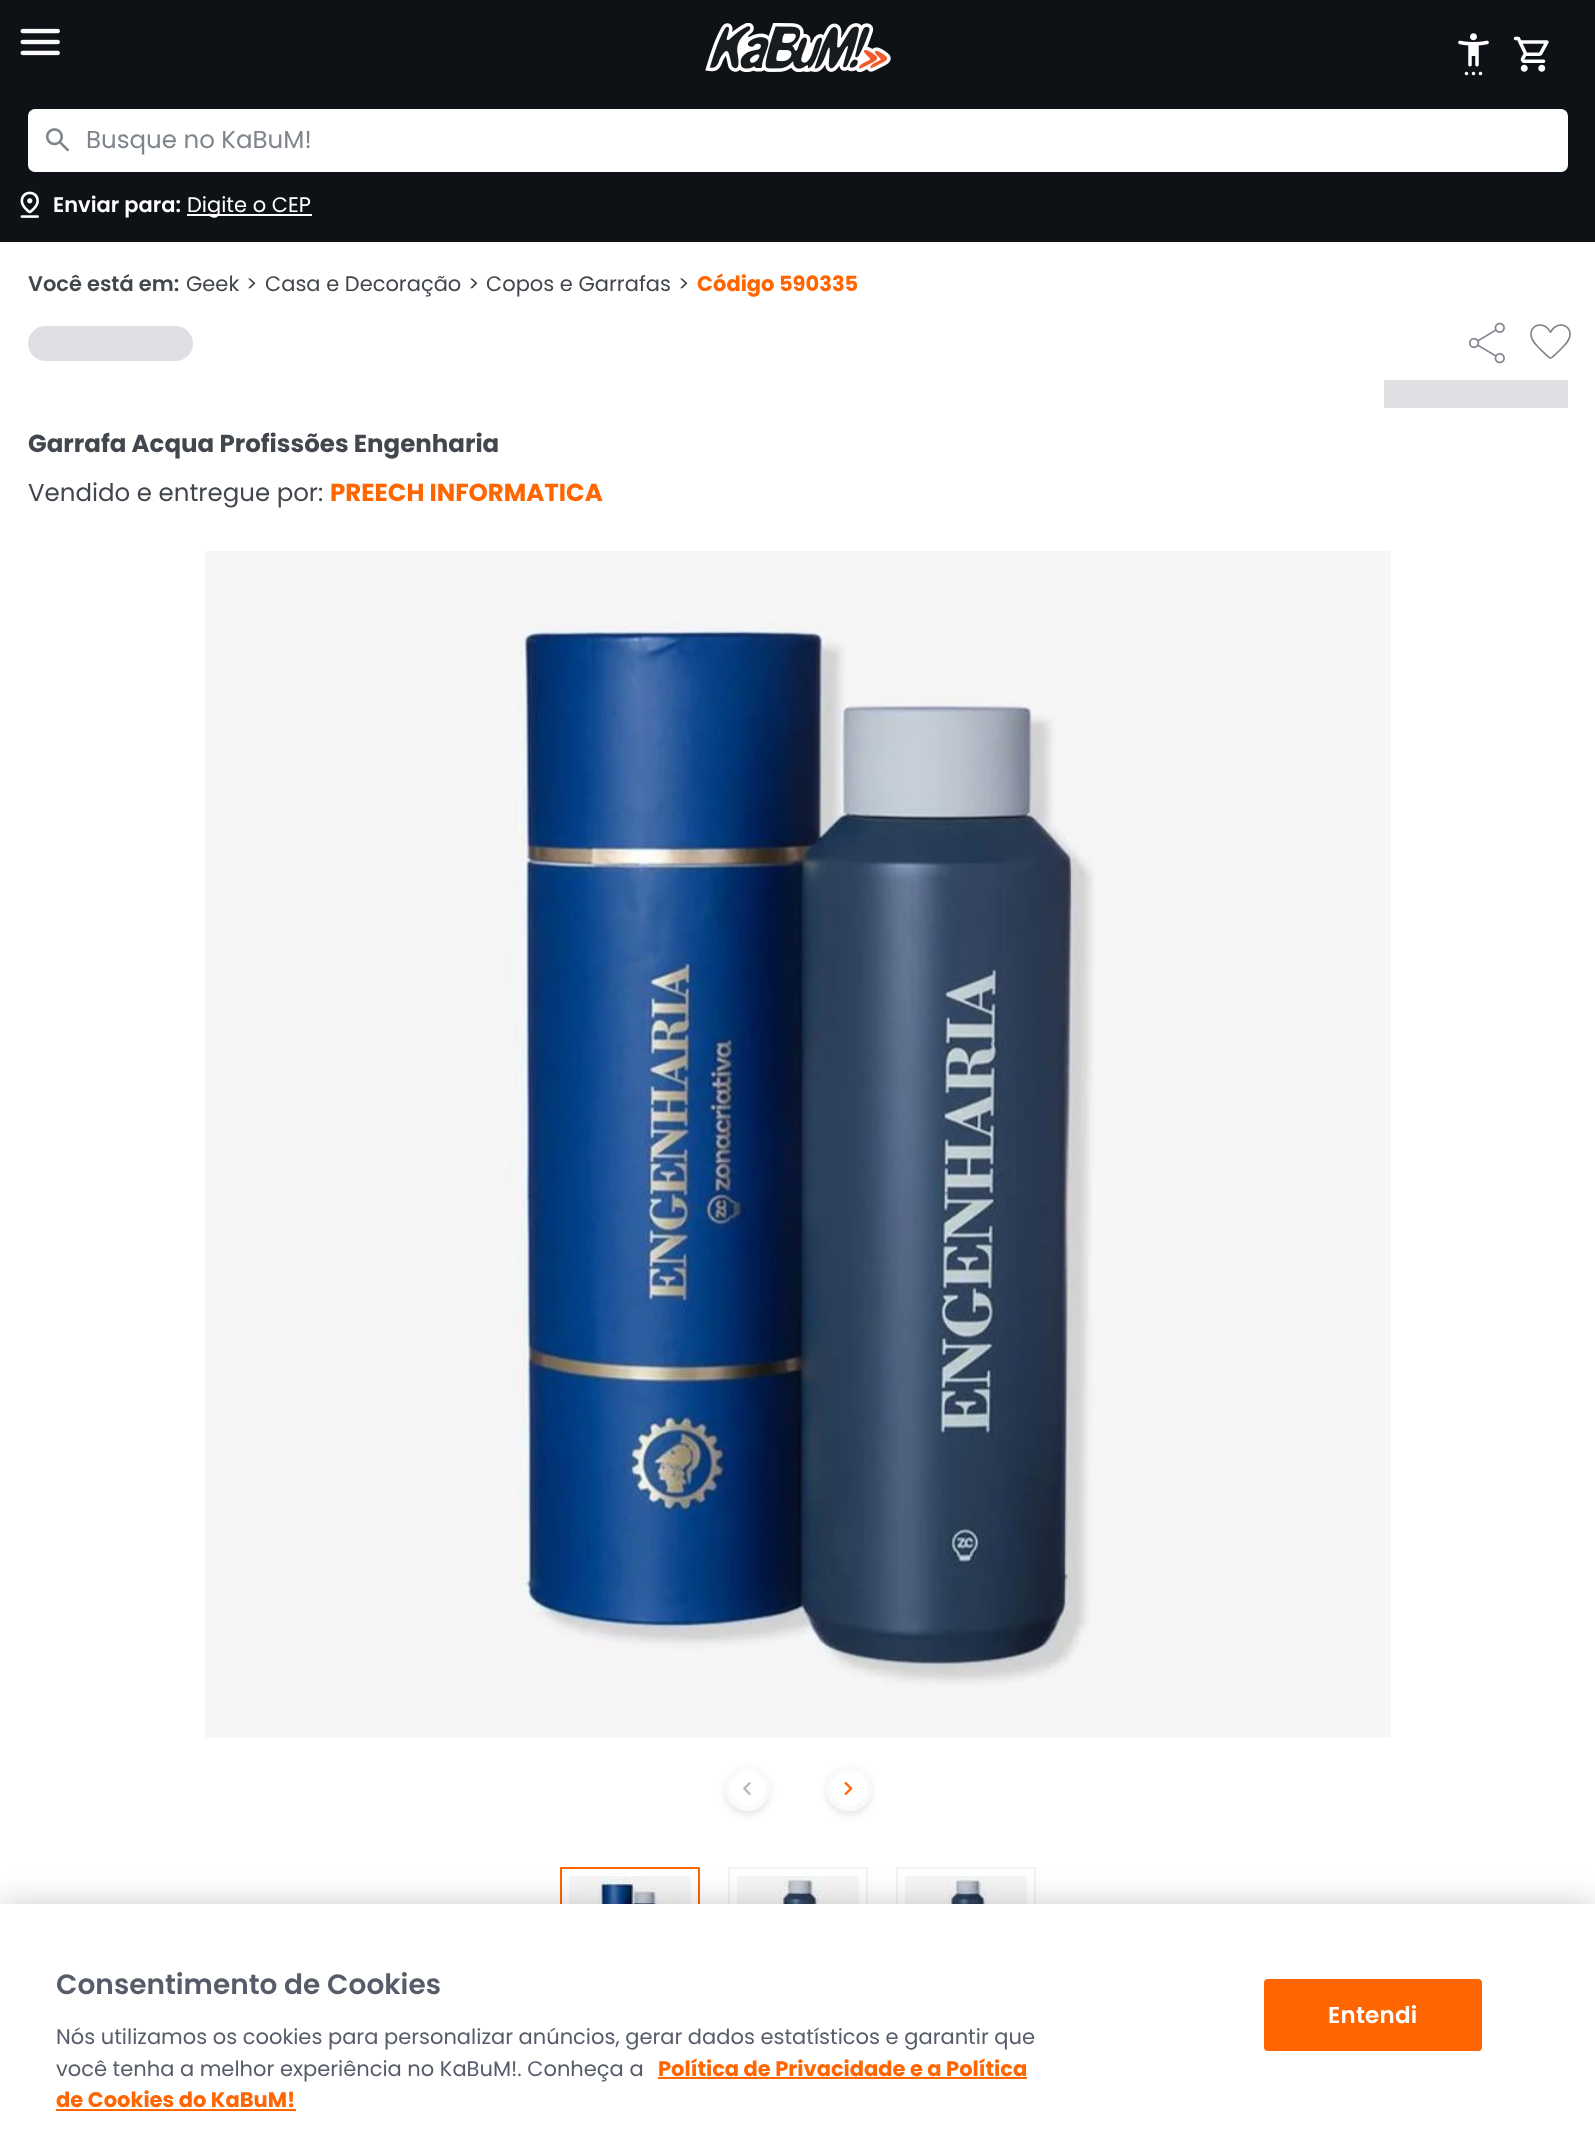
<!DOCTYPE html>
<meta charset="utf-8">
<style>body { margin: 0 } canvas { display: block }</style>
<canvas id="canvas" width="1595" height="2153"></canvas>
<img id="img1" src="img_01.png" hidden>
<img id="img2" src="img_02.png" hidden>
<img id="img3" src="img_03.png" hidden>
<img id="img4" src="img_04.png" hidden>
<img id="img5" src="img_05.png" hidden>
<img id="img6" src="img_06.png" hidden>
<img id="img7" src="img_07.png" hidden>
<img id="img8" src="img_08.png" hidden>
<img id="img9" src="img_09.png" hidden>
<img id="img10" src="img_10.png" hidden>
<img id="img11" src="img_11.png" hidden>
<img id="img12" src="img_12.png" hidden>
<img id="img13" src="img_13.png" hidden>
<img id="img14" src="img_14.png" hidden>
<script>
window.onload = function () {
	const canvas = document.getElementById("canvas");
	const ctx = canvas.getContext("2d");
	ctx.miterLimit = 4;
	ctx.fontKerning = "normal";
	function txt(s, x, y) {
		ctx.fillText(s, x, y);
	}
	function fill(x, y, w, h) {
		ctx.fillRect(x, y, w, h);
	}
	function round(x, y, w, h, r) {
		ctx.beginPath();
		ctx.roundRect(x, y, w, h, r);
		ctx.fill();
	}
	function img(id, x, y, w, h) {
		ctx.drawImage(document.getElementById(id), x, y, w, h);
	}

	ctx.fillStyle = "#FFFFFF";
	fill(0, 0, 1595, 2153);
	ctx.fillStyle = "#0E1116";
	fill(0, 0, 1595, 242);
	img("img1", 20, 28, 40, 28);
	img("img2", 705, 23, 186, 49);
	img("img3", 1458, 33, 31, 43);
	img("img4", 1513, 36, 36, 36);
	ctx.fillStyle = "#FFFFFF";
	ctx.beginPath();
	ctx.roundRect(29, 110, 1538, 61, 6);
	ctx.fill();
	ctx.strokeStyle = "#FFFFFF";
	ctx.lineWidth = 2;
	ctx.stroke();
	img("img5", 45, 128, 24, 24);
	img("img6", 20, 191, 19, 27);
	fill(187, 214, 125, 2);
	ctx.fillStyle = "#DEE0E4";
	round(28, 326, 165, 35, 17.5);
	img("img7", 1469, 322, 36, 42);
	img("img8", 1530, 324, 41, 35);
	fill(1384, 380, 184, 28);
	img("img9", 205, 551, 1186, 1187);
	ctx.fillStyle = "rgba(96, 97, 112, 0.16)";
	ctx.filter = "blur(3.5px)";
	ctx.beginPath();
	ctx.roundRect(725, 1769, 45, 46, 22.5);
	ctx.fill();
	ctx.filter = "none";
	ctx.fillStyle = "#FFFFFF";
	ctx.beginPath();
	ctx.arc(747.5, 1788.5, 20, 0, Math.PI * 2);
	ctx.fill();
	ctx.strokeStyle = "#FAFAFB";
	ctx.lineWidth = 5;
	ctx.stroke();
	img("img10", 743, 1782, 8, 13);
	ctx.fillStyle = "rgba(96, 97, 112, 0.16)";
	ctx.filter = "blur(3.5px)";
	ctx.beginPath();
	ctx.roundRect(826, 1769, 46, 46, 23);
	ctx.fill();
	ctx.filter = "none";
	ctx.fillStyle = "#FFFFFF";
	ctx.beginPath();
	ctx.roundRect(828.5, 1768.5, 41, 40, 20);
	ctx.fill();
	ctx.stroke();
	img("img11", 844, 1782, 9, 13);
	ctx.strokeStyle = "#FF6500";
	ctx.lineWidth = 2;
	ctx.strokeRect(561, 1868, 138, 138);
	img("img12", 569, 1876, 122, 28);
	ctx.strokeStyle = "#F2F3F4";
	ctx.strokeRect(729, 1868, 138, 138);
	img("img13", 737, 1876, 122, 28);
	ctx.strokeRect(897, 1868, 138, 138);
	img("img14", 905, 1876, 122, 28);
	ctx.fillStyle = "rgba(0, 0, 0, 0.2)";
	ctx.filter = "blur(16px)";
	ctx.beginPath();
	ctx.rect(0, 1904, 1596, 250);
	ctx.fill();
	ctx.filter = "none";
	ctx.fillStyle = "#FFFFFF";
	fill(0, 1904, 1595, 249);
	ctx.fillStyle = "#FF6500";
	fill(658, 2077, 369, 2);
	fill(56, 2109, 240, 2);
	ctx.beginPath();
	ctx.roundRect(1265, 1980, 216, 70, 3);
	ctx.fill();
	ctx.strokeStyle = "#FF6500";
	ctx.stroke();
	ctx.font = "24.5px Poppins";
	ctx.fillStyle = "#7F858D";
	txt("Busque no KaBuM!", 86, 148);
	ctx.font = "600 21px Poppins";
	ctx.fillStyle = "#FFFFFF";
	txt("Enviar para:", 53, 212);
	ctx.font = "21px Poppins";
	txt("Digite o CEP", 187, 212);
	ctx.font = "600 21px Poppins";
	ctx.fillStyle = "#42464D";
	txt("Você está em:", 28, 291);
	ctx.font = "21px Poppins";
	txt("Geek", 186, 291);
	txt(">", 246, 291);
	txt("Casa e Decoração", 265, 291);
	txt(">", 468, 291);
	txt("Copos e Garrafas", 486, 291);
	txt(">", 678, 291);
	ctx.font = "bold 21px Poppins";
	ctx.fillStyle = "#FF6500";
	txt("Código 590335", 697, 291);
	ctx.font = "bold 24.5px Poppins";
	ctx.fillStyle = "#42464D";
	txt("Garrafa Acqua Profissões Engenharia", 28, 452);
	ctx.font = "24.5px Poppins";
	txt("Vendido e entregue por:", 28, 501);
	ctx.font = "bold 24.5px Poppins";
	ctx.fillStyle = "#FF6500";
	txt("PREECH INFORMATICA", 330, 501);
	ctx.font = "600 28px 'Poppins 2'";
	ctx.fillStyle = "#565C69";
	txt("Consentimento de Cookies", 56, 1994);
	ctx.font = "21px 'Poppins 2'";
	txt("Nós utilizamos os cookies para personalizar anúncios, gerar dados estatísticos e garantir que", 56, 2044);
	txt("você tenha a melhor experiência no KaBuM!. Conheça a", 56, 2076);
	ctx.font = "bold 21px 'Poppins 2'";
	ctx.fillStyle = "#FF6500";
	txt("Política de Privacidade e a Política", 658, 2076);
	txt("de Cookies do KaBuM!", 56, 2107);
	ctx.letterSpacing = "0.25px";
	ctx.font = "600 23px 'Poppins 2'";
	ctx.fillStyle = "#FFFFFF";
	txt("Entendi", 1328, 2023);
};
</script>
